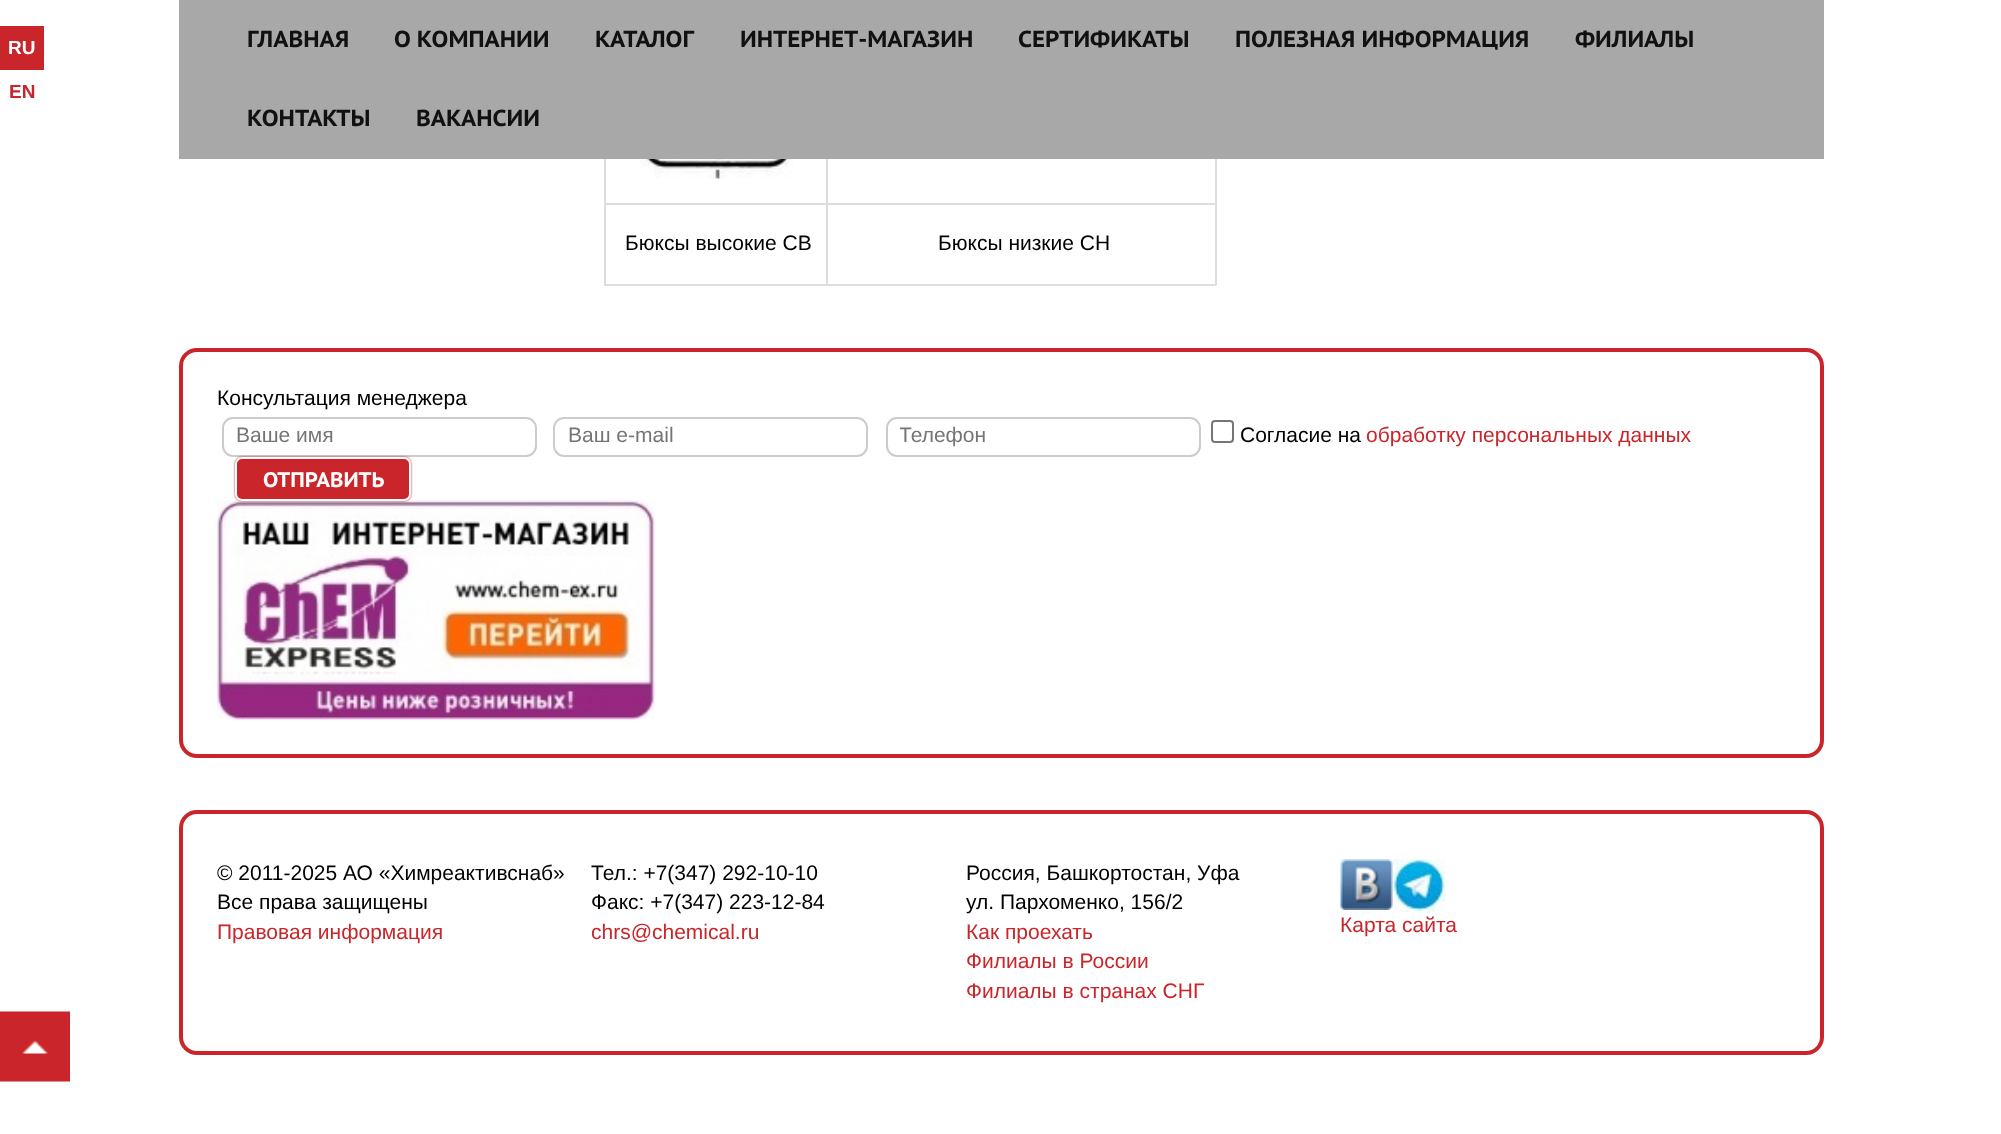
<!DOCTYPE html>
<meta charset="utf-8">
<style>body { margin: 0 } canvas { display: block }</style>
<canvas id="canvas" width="2001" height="1134"></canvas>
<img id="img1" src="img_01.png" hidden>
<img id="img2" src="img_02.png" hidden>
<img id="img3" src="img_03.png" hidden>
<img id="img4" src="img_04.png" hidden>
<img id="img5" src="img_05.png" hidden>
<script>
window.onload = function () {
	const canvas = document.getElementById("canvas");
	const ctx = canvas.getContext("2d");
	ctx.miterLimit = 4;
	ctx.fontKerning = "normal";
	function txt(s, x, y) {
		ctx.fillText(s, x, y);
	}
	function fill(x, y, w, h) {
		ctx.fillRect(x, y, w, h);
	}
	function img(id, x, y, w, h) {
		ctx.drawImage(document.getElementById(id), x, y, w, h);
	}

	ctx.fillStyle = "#FFFFFF";
	fill(0, 0, 2001, 1134);
	ctx.fillStyle = "#C9252B";
	fill(0, 26, 44, 44);
	ctx.fillStyle = "#A8A8A8";
	fill(179, 0, 1645, 159);
	ctx.fillStyle = "#DDDDDD";
	fill(1215, 159, 2, 126);
	fill(604, 284, 612, 2);
	fill(604, 159, 2, 126);
	img("img1", 636, 159, 159, 20);
	fill(826, 203, 390, 2);
	fill(826, 203, 2, 82);
	fill(604, 203, 224, 2);
	fill(826, 159, 2, 46);
	ctx.beginPath();
	ctx.roundRect(181, 350, 1641, 406, 16);
	ctx.strokeStyle = "#C9252B";
	ctx.lineWidth = 4;
	ctx.stroke();
	ctx.beginPath();
	ctx.roundRect(223, 418, 313, 38, 10);
	ctx.strokeStyle = "#CCCCCC";
	ctx.lineWidth = 2;
	ctx.stroke();
	ctx.beginPath();
	ctx.roundRect(554, 418, 313, 38, 10);
	ctx.stroke();
	ctx.beginPath();
	ctx.roundRect(887, 418, 313, 38, 10);
	ctx.stroke();
	ctx.beginPath();
	ctx.roundRect(1212, 421, 21, 21, 3);
	ctx.strokeStyle = "#767676";
	ctx.stroke();
	img("img2", 217, 500, 438, 220);
	ctx.fillStyle = "#C9252B";
	ctx.filter = "blur(1px)";
	ctx.beginPath();
	ctx.roundRect(235, 457, 176, 44, 7);
	ctx.fill();
	ctx.filter = "none";
	ctx.beginPath();
	ctx.roundRect(236, 458, 174, 42, 6);
	ctx.fill();
	ctx.strokeStyle = "#FFFFFF";
	ctx.stroke();
	ctx.beginPath();
	ctx.roundRect(181, 812, 1641, 241, 16);
	ctx.strokeStyle = "#C9252B";
	ctx.lineWidth = 4;
	ctx.stroke();
	img("img3", 1340, 859, 53, 51);
	img("img4", 1393, 859, 53, 53);
	img("img5", 0, 1011, 70, 71);
	ctx.font = "bold 19px Liberation Sans";
	ctx.fillStyle = "#FFFFFF";
	txt("RU", 8, 54);
	ctx.fillStyle = "#C9252B";
	txt("EN", 9, 98);
	ctx.font = "bold 23.1px PT Sans Caption";
	ctx.fillStyle = "#111111";
	txt("ГЛАВНАЯ", 247, 47);
	txt("О КОМПАНИИ", 394, 47);
	txt("КАТАЛОГ", 595, 47);
	txt("ИНТЕРНЕТ-МАГАЗИН", 740, 47);
	txt("СЕРТИФИКАТЫ", 1018, 47);
	txt("ПОЛЕЗНАЯ ИНФОРМАЦИЯ", 1235, 47);
	txt("ФИЛИАЛЫ", 1575, 47);
	txt("КОНТАКТЫ", 247, 126);
	txt("ВАКАНСИИ", 416, 126);
	ctx.font = "21px Liberation Sans";
	ctx.fillStyle = "#000000";
	txt("Бюксы высокие СВ", 625, 250);
	txt("Бюксы низкие СН", 938, 250);
	txt("Консультация менеджера", 217, 405);
	ctx.fillStyle = "#757575";
	txt("Ваше имя", 236, 442);
	txt("Ваш e-mail", 568, 442);
	ctx.save();
	ctx.beginPath();
	ctx.rect(900, 424, 287, 24);
	ctx.clip();
	txt("Телефон", 899, 442);
	ctx.restore();
	ctx.fillStyle = "#000000";
	txt("Согласие на", 1240, 442);
	ctx.fillStyle = "#C9252B";
	txt("обработку персональных данных", 1366, 442);
	ctx.font = "bold 21px PT Sans Caption";
	ctx.fillStyle = "#FFFFFF";
	txt("ОТПРАВИТЬ", 263, 487);
	ctx.font = "21px Liberation Sans";
	ctx.fillStyle = "#000000";
	txt("© 2011-2025 АО «Химреактивснаб»", 217, 880);
	txt("Все права защищены", 217, 909);
	ctx.fillStyle = "#C9252B";
	txt("Правовая информация", 217, 939);
	ctx.fillStyle = "#000000";
	txt("Тел.: +7(347) 292-10-10", 591, 880);
	txt("Факс: +7(347) 223-12-84", 591, 909);
	ctx.fillStyle = "#C9252B";
	txt("chrs@chemical.ru", 591, 939);
	ctx.fillStyle = "#000000";
	txt("Россия, Башкортостан, Уфа", 966, 880);
	txt("ул. Пархоменко, 156/2", 966, 909);
	ctx.fillStyle = "#C9252B";
	txt("Как проехать", 966, 939);
	txt("Филиалы в России", 966, 968);
	txt("Филиалы в странах СНГ", 966, 998);
	txt("Карта сайта", 1340, 932);
};
</script>
